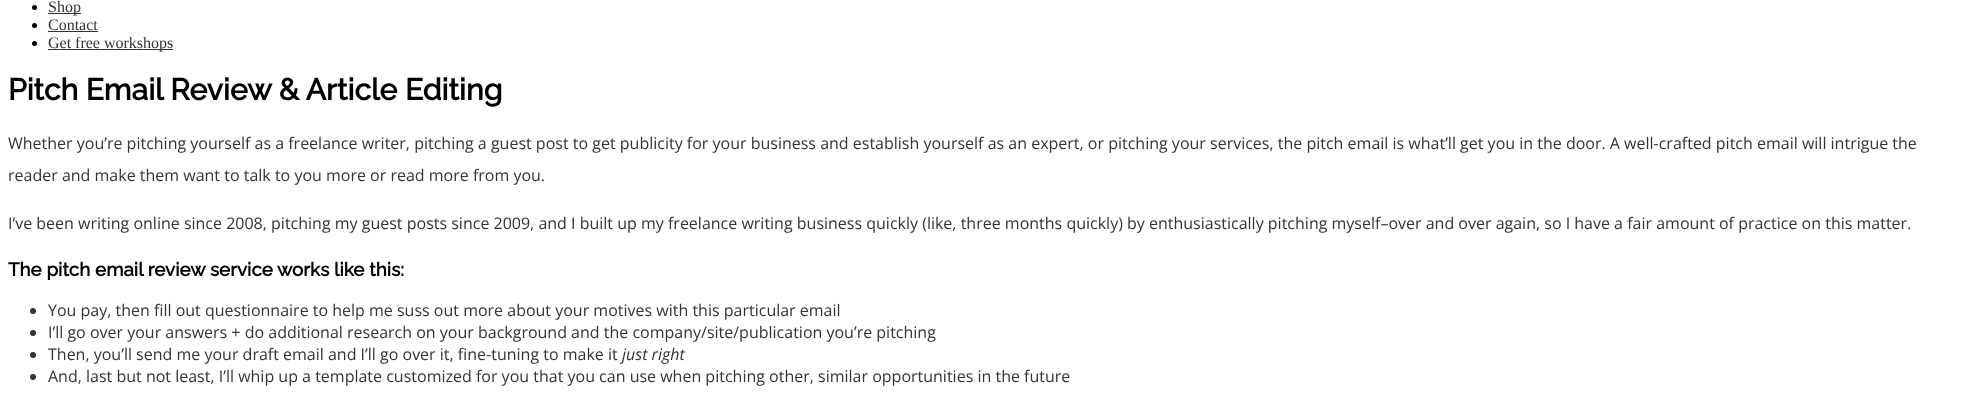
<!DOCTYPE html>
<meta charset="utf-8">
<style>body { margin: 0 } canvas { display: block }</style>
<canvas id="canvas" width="1966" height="406"></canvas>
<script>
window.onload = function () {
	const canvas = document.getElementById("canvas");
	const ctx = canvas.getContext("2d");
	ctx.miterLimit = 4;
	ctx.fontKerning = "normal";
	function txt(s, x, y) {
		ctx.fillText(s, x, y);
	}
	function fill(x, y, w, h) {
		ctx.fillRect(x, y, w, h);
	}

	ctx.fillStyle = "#FFFFFF";
	fill(0, 0, 1966, 406);
	ctx.fillStyle = "#000000";
	ctx.beginPath();
	ctx.arc(34.5, 7.5, 2.5, 0, Math.PI * 2);
	ctx.fill();
	ctx.fillStyle = "#333333";
	fill(48, 13, 33, 1);
	ctx.fillStyle = "#000000";
	ctx.beginPath();
	ctx.arc(34.5, 25.5, 2.5, 0, Math.PI * 2);
	ctx.fill();
	ctx.fillStyle = "#333333";
	fill(48, 31, 50, 1);
	ctx.fillStyle = "#000000";
	ctx.beginPath();
	ctx.arc(34.5, 43.5, 2.5, 0, Math.PI * 2);
	ctx.fill();
	ctx.fillStyle = "#333333";
	fill(48, 49, 125, 1);
	ctx.beginPath();
	ctx.arc(33, 311, 3, 0, Math.PI * 2);
	ctx.fill();
	ctx.beginPath();
	ctx.arc(33, 333, 3, 0, Math.PI * 2);
	ctx.fill();
	ctx.beginPath();
	ctx.arc(33, 355, 3, 0, Math.PI * 2);
	ctx.fill();
	ctx.beginPath();
	ctx.arc(33, 377, 3, 0, Math.PI * 2);
	ctx.fill();
	ctx.font = "16px Liberation Serif";
	txt("Shop", 48, 12);
	txt("Contact", 48, 30);
	txt("Get free workshops", 48, 48);
	ctx.font = "bold 30px Raleway";
	ctx.fillStyle = "#000000";
	txt("Pitch Email Review & Article Editing", 8, 100);
	ctx.font = "16px Open Sans";
	ctx.fillStyle = "#333333";
	txt("Whether you’re pitching yourself as a freelance writer, pitching a guest post to get publicity for your business and establish yourself as an expert, or pitching your services, the pitch email is what’ll get you in the door. A well-crafted pitch email will intrigue the", 8, 149);
	txt("reader and make them want to talk to you more or read more from you.", 8, 181);
	txt("I’ve been writing online since 2008, pitching my guest posts since 2009, and I built up my freelance writing business quickly (like, three months quickly) by enthusiastically pitching myself–over and over again, so I have a fair amount of practice on this matter.", 8, 229);
	ctx.font = "bold 18.75px Raleway";
	ctx.fillStyle = "#000000";
	txt("The pitch email review service works like this:", 8, 276);
	ctx.font = "16px Open Sans";
	ctx.fillStyle = "#333333";
	txt("You pay, then fill out questionnaire to help me suss out more about your motives with this particular email", 48, 316);
	txt("I’ll go over your answers + do additional research on your background and the company/site/publication you’re pitching", 48, 338);
	txt("Then, you’ll send me your draft email and I’ll go over it, fine-tuning to make it", 48, 360);
	ctx.font = "italic 16px Open Sans";
	txt("just right", 622, 360);
	ctx.font = "16px Open Sans";
	txt("And, last but not least, I’ll whip up a template customized for you that you can use when pitching other, similar opportunities in the future", 48, 382);
};
</script>
